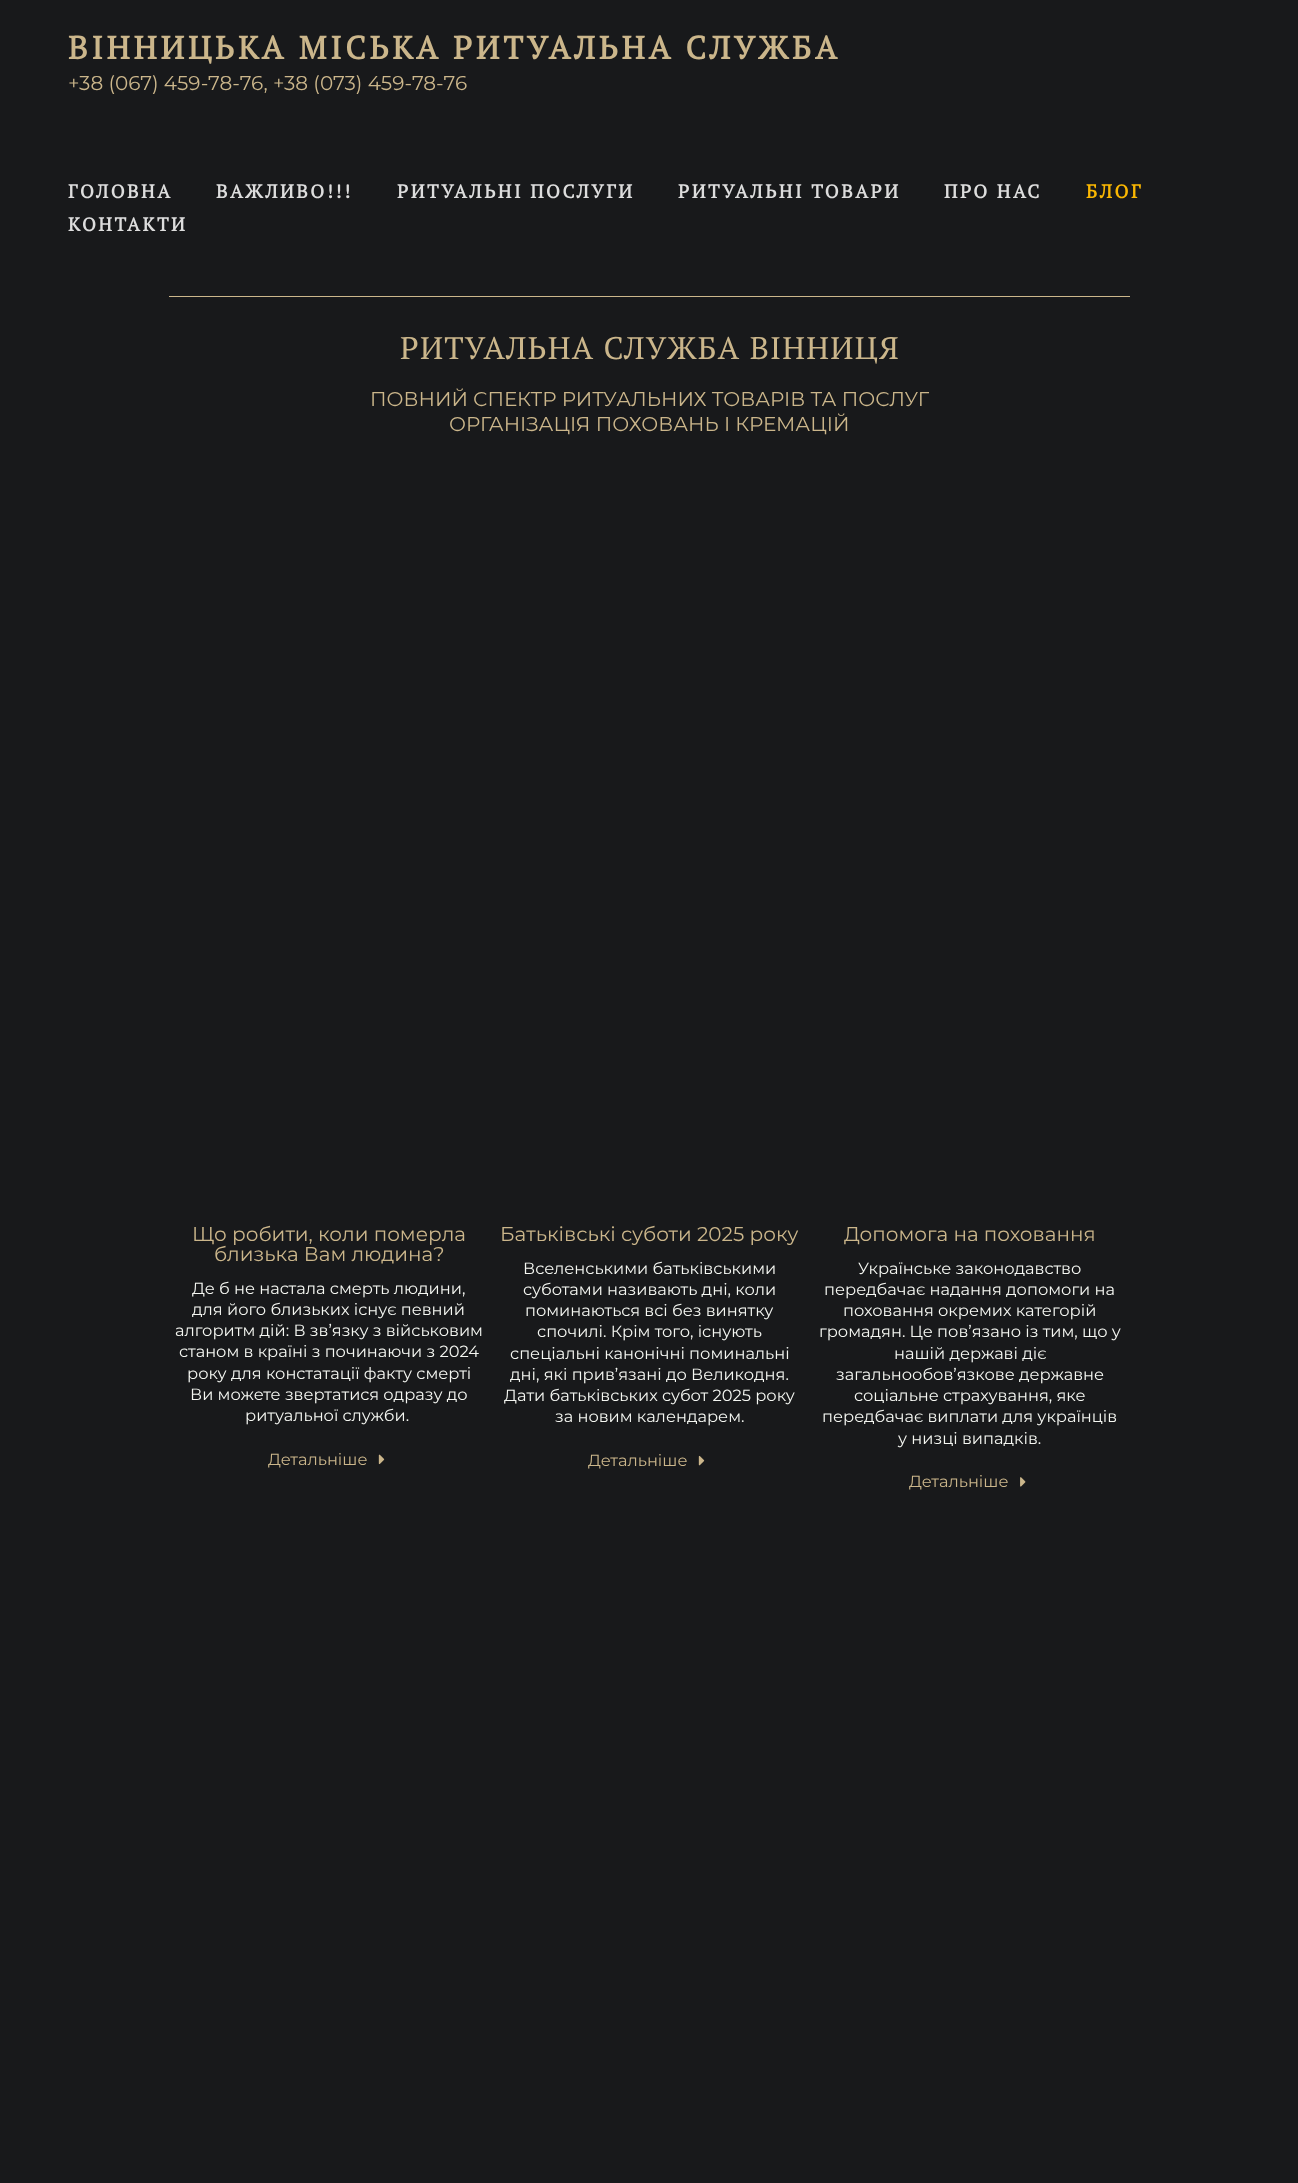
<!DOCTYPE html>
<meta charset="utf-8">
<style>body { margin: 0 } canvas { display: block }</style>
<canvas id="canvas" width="1298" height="2183"></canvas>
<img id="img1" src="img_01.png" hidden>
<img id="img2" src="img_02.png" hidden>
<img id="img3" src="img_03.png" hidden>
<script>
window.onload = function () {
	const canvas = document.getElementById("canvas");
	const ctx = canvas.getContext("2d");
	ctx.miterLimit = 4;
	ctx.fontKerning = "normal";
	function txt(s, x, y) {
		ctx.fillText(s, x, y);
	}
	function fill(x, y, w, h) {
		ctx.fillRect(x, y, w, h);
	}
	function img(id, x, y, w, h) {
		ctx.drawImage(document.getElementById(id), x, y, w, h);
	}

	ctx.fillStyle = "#18191B";
	fill(0, 0, 1298, 2183);
	ctx.fillStyle = "#CBB68B";
	fill(169, 296, 961, 1);
	img("img1", 378, 1454, 7, 11);
	img("img2", 698, 1455, 7, 11);
	img("img3", 1020, 1477, 6, 10);
	ctx.letterSpacing = "3.75px";
	ctx.wordSpacing = "0.5px";
	ctx.font = "bold 32px PT Serif";
	txt("ВІННИЦЬКА МІСЬКА РИТУАЛЬНА СЛУЖБА", 68, 59);
	ctx.letterSpacing = "0px";
	ctx.wordSpacing = "0px";
	ctx.font = "100 20px Montserrat";
	txt("+38 (067) 459-78-76, +38 (073) 459-78-76", 68, 90);
	ctx.letterSpacing = "2.5px";
	ctx.font = "bold 18.75px PT Serif";
	ctx.fillStyle = "#DDDDDD";
	txt("ГОЛОВНА", 68, 198);
	txt("ВАЖЛИВО!!!", 216, 198);
	txt("РИТУАЛЬНІ ПОСЛУГИ", 397, 198);
	txt("РИТУАЛЬНІ ТОВАРИ", 678, 198);
	txt("ПРО НАС", 944, 198);
	ctx.fillStyle = "#FAB702";
	txt("БЛОГ", 1086, 198);
	ctx.fillStyle = "#DDDDDD";
	txt("КОНТАКТИ", 68, 231);
	ctx.letterSpacing = "1.25px";
	ctx.wordSpacing = "1px";
	ctx.font = "31.25px PT Serif";
	ctx.fillStyle = "#CBB68B";
	txt("РИТУАЛЬНА СЛУЖБА ВІННИЦЯ", 400, 359);
	ctx.letterSpacing = "0px";
	ctx.wordSpacing = "0px";
	ctx.font = "100 20px Montserrat";
	txt("ПОВНИЙ СПЕКТР РИТУАЛЬНИХ ТОВАРІВ ТА ПОСЛУГ", 370, 406);
	txt("ОРГАНІЗАЦІЯ ПОХОВАНЬ І КРЕМАЦІЙ", 449, 431);
	txt("Що робити, коли померла", 192, 1241);
	txt("близька Вам людина?", 214, 1261);
	ctx.font = "100 16.25px Montserrat";
	ctx.fillStyle = "#F5F7F2";
	txt("Де б не настала смерть людини,", 192, 1294);
	txt("для його близьких існує певний", 192, 1315);
	txt("алгоритм дій: В зв’язку з військовим", 175, 1336);
	txt("станом в країні з починаючи з 2024", 179, 1357);
	txt("року для констатації факту смерті", 187, 1379);
	txt("Ви можете звертатися одразу до", 190, 1400);
	txt("ритуальної служби.", 245, 1421);
	ctx.fillStyle = "#CBB68B";
	txt("Детальніше", 268, 1465);
	ctx.font = "100 20px Montserrat";
	txt("Батьківські суботи 2025 року", 500, 1241);
	ctx.font = "100 16.25px Montserrat";
	ctx.fillStyle = "#F5F7F2";
	txt("Вселенськими батьківськими", 523, 1274);
	txt("суботами називають дні, коли", 523, 1295);
	txt("поминаються всі без винятку", 525, 1316);
	txt("спочилі. Крім того, існують", 537, 1337);
	txt("спеціальні канонічні поминальні", 510, 1359);
	txt("дні, які прив’язані до Великодня.", 510, 1380);
	txt("Дати батьківських субот 2025 року", 504, 1401);
	txt("за новим календарем.", 555, 1422);
	ctx.fillStyle = "#CBB68B";
	txt("Детальніше", 588, 1466);
	ctx.font = "100 20px Montserrat";
	txt("Допомога на поховання", 844, 1241);
	ctx.font = "100 16.25px Montserrat";
	ctx.fillStyle = "#F5F7F2";
	txt("Українське законодавство", 858, 1274);
	txt("передбачає надання допомоги на", 824, 1295);
	txt("поховання окремих категорій", 843, 1316);
	txt("громадян. Це пов’язано із тим, що у", 819, 1337);
	txt("нашій державі діє", 894, 1359);
	txt("загальнообов’язкове державне", 836, 1380);
	txt("соціальне страхування, яке", 854, 1401);
	txt("передбачає виплати для українців", 822, 1422);
	txt("у низці випадків.", 898, 1444);
	ctx.fillStyle = "#CBB68B";
	txt("Детальніше", 909, 1487);
};
</script>
